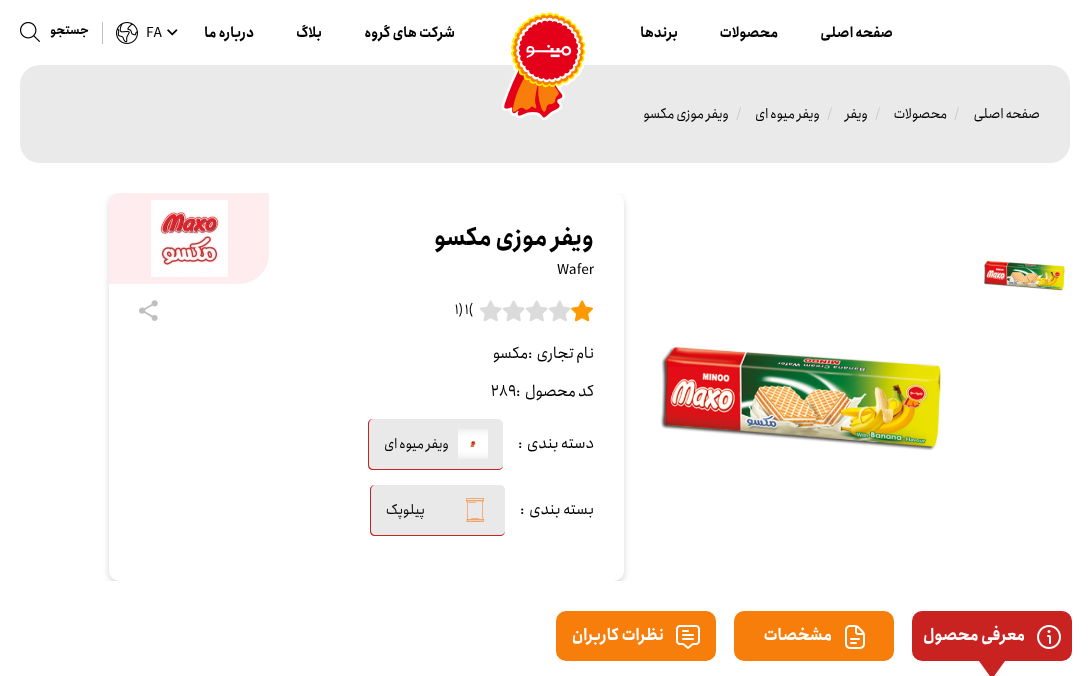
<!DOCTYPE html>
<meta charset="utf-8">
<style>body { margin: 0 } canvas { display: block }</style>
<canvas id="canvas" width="1090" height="676"></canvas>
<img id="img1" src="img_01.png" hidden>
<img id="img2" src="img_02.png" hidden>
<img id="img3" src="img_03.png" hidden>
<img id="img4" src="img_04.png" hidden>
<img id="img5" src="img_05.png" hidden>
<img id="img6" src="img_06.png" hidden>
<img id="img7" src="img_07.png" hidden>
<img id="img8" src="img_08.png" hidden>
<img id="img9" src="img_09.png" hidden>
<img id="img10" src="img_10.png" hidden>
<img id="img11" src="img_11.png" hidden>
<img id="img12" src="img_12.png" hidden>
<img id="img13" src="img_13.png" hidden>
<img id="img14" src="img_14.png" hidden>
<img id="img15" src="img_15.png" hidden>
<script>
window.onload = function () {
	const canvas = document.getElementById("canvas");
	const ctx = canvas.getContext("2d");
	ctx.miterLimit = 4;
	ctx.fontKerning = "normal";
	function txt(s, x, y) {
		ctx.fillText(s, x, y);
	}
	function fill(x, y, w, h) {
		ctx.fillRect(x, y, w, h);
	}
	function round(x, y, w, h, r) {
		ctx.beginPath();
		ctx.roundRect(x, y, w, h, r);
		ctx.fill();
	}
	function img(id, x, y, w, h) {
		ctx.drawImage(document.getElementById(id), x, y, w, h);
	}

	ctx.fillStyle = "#FFFFFF";
	fill(0, 0, 1090, 676);
	ctx.fillStyle = "#EAEAEA";
	round(20, 65, 1050, 98, 20);
	img("img1", 502, 12, 84, 108);
	img("img2", 167, 29, 11, 7);
	img("img3", 116, 22, 22, 22);
	ctx.fillStyle = "#BFBFBF";
	fill(102, 22, 1, 22);
	img("img4", 20, 22, 20, 20);
	img("img5", 984, 260, 81, 31);
	img("img6", 660, 346, 281, 105);
	ctx.save();
	ctx.beginPath();
	ctx.rect(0, 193, 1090, 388);
	ctx.clip();
	ctx.fillStyle = "rgba(0, 0, 0, 0.16)";
	ctx.filter = "blur(3px)";
	ctx.beginPath();
	ctx.roundRect(109, 196, 515, 388, 10);
	ctx.fill();
	ctx.filter = "none";
	ctx.restore();
	ctx.fillStyle = "#FFFFFF";
	round(109, 193, 515, 388, 10);
	ctx.fillStyle = "#FFECEE";
	ctx.beginPath();
	ctx.roundRect(109, 193, 160, 91, [10, 0, 30, 0]);
	ctx.fill();
	img("img7", 151, 200, 77, 77);
	img("img8", 571, 300, 22, 22);
	img("img9", 548, 300, 23, 22);
	img("img9", 525, 300, 23, 22);
	img("img9", 502, 300, 23, 22);
	img("img9", 479, 300, 23, 22);
	img("img10", 139, 300, 19, 21);
	ctx.fillStyle = "#E9E9E9";
	round(368, 419, 135, 51, 5);
	ctx.fillStyle = "#C82320";
	ctx.beginPath();
	ctx.moveTo(373, 419);
	ctx.lineTo(498, 419);
	ctx.bezierCurveTo(501, 419, 503, 421, 503, 424);
	ctx.lineTo(503, 465);
	ctx.bezierCurveTo(503, 468, 501, 470, 498, 470);
	ctx.lineTo(373, 470);
	ctx.bezierCurveTo(370, 470, 368, 468, 368, 465);
	ctx.lineTo(368, 424);
	ctx.bezierCurveTo(368, 421, 370, 419, 373, 419);
	ctx.closePath();
	ctx.moveTo(373, 419);
	ctx.lineTo(498, 419);
	ctx.bezierCurveTo(501, 419, 503, 421, 503, 424);
	ctx.lineTo(503, 465);
	ctx.bezierCurveTo(503, 467, 501, 469, 498, 469);
	ctx.lineTo(373, 469);
	ctx.bezierCurveTo(371, 469, 369, 467, 369, 465);
	ctx.lineTo(369, 424);
	ctx.bezierCurveTo(369, 421, 371, 419, 373, 419);
	ctx.closePath();
	ctx.fill("evenodd");
	img("img11", 458, 429, 30, 30);
	ctx.fillStyle = "#E9E9E9";
	round(370, 485, 135, 51, 5);
	ctx.fillStyle = "#C82320";
	ctx.beginPath();
	ctx.moveTo(375, 485);
	ctx.lineTo(500, 485);
	ctx.bezierCurveTo(503, 485, 505, 487, 505, 490);
	ctx.lineTo(505, 531);
	ctx.bezierCurveTo(505, 534, 503, 536, 500, 536);
	ctx.lineTo(375, 536);
	ctx.bezierCurveTo(372, 536, 370, 534, 370, 531);
	ctx.lineTo(370, 490);
	ctx.bezierCurveTo(370, 487, 372, 485, 375, 485);
	ctx.closePath();
	ctx.moveTo(375, 485);
	ctx.lineTo(500, 485);
	ctx.bezierCurveTo(503, 485, 505, 487, 505, 490);
	ctx.lineTo(505, 531);
	ctx.bezierCurveTo(505, 533, 503, 535, 500, 535);
	ctx.lineTo(375, 535);
	ctx.bezierCurveTo(373, 535, 371, 533, 371, 531);
	ctx.lineTo(371, 490);
	ctx.bezierCurveTo(371, 487, 373, 485, 375, 485);
	ctx.closePath();
	ctx.fill("evenodd");
	img("img12", 466, 498, 18, 24);
	round(912, 611, 160, 50, 10);
	img("img13", 1037, 625, 24, 24);
	ctx.beginPath();
	ctx.moveTo(979, 661);
	ctx.lineTo(1005, 661);
	ctx.lineTo(992, 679);
	ctx.closePath();
	ctx.fill();
	ctx.fillStyle = "#F77E0B";
	round(734, 611, 160, 50, 10);
	img("img14", 845, 625, 20, 24);
	round(556, 611, 160, 50, 10);
	img("img15", 676, 625, 24, 24);
	ctx.direction = "rtl";
	ctx.font = "bold 14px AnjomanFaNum";
	ctx.fillStyle = "#000000";
	txt("صفحه اصلی", 893, 37);
	txt("محصولات", 778, 37);
	txt("برندها", 678, 37);
	txt("شرکت های گروه", 455, 37);
	txt("بلاگ", 322, 37);
	txt("درباره ما", 254, 37);
	ctx.direction = "ltr";
	ctx.font = "14px AnjomanFaNum";
	txt("FA", 146, 37);
	ctx.direction = "rtl";
	ctx.font = "bold 12px AnjomanFaNum";
	txt("جستجو", 89, 34);
	ctx.font = "14px AnjomanFaNum";
	txt("صفحه اصلی", 1040, 118);
	ctx.direction = "ltr";
	ctx.fillStyle = "#CCCCCC";
	txt("/", 954, 118);
	ctx.direction = "rtl";
	ctx.fillStyle = "#000000";
	txt("محصولات", 947, 118);
	ctx.direction = "ltr";
	ctx.fillStyle = "#CCCCCC";
	txt("/", 875, 118);
	ctx.direction = "rtl";
	ctx.fillStyle = "#000000";
	txt("ویفر", 868, 118);
	ctx.direction = "ltr";
	ctx.fillStyle = "#CCCCCC";
	txt("/", 827, 118);
	ctx.direction = "rtl";
	ctx.fillStyle = "#000000";
	txt("ویفر میوه ای", 820, 118);
	ctx.direction = "ltr";
	ctx.fillStyle = "#CCCCCC";
	txt("/", 736, 118);
	ctx.direction = "rtl";
	ctx.fillStyle = "#000000";
	txt("ویفر موزی مکسو", 729, 118);
	ctx.font = "bold 24px AnjomanFaNum";
	txt("ویفر موزی مکسو", 594, 245);
	ctx.direction = "ltr";
	ctx.font = "14px AnjomanFaNum";
	txt("Wafer", 557, 274);
	txt("1) 1(", 455, 314);
	ctx.direction = "rtl";
	ctx.font = "16px AnjomanFaNum";
	txt("نام تجاری", 594, 358);
	ctx.direction = "ltr";
	txt(":", 528, 358);
	ctx.direction = "rtl";
	txt("مکسو", 528, 358);
	txt("کد محصول", 594, 396);
	ctx.direction = "ltr";
	txt(":", 516, 396);
	txt("289", 491, 396);
	ctx.direction = "rtl";
	txt("دسته بندی", 594, 448);
	ctx.direction = "ltr";
	txt(":", 518, 448);
	ctx.direction = "rtl";
	ctx.font = "14px AnjomanFaNum";
	txt("ویفر میوه ای", 449, 448);
	ctx.font = "16px AnjomanFaNum";
	txt("بسته بندی", 594, 514);
	ctx.direction = "ltr";
	txt(":", 520, 514);
	ctx.direction = "rtl";
	ctx.font = "14px AnjomanFaNum";
	txt("پیلوپک", 425, 514);
	ctx.font = "bold 16px AnjomanFaNum";
	ctx.fillStyle = "#FFFFFF";
	txt("معرفی محصول", 1025, 640);
	txt("مشخصات", 832, 640);
	txt("نظرات کاربران", 664, 640);
};
</script>
